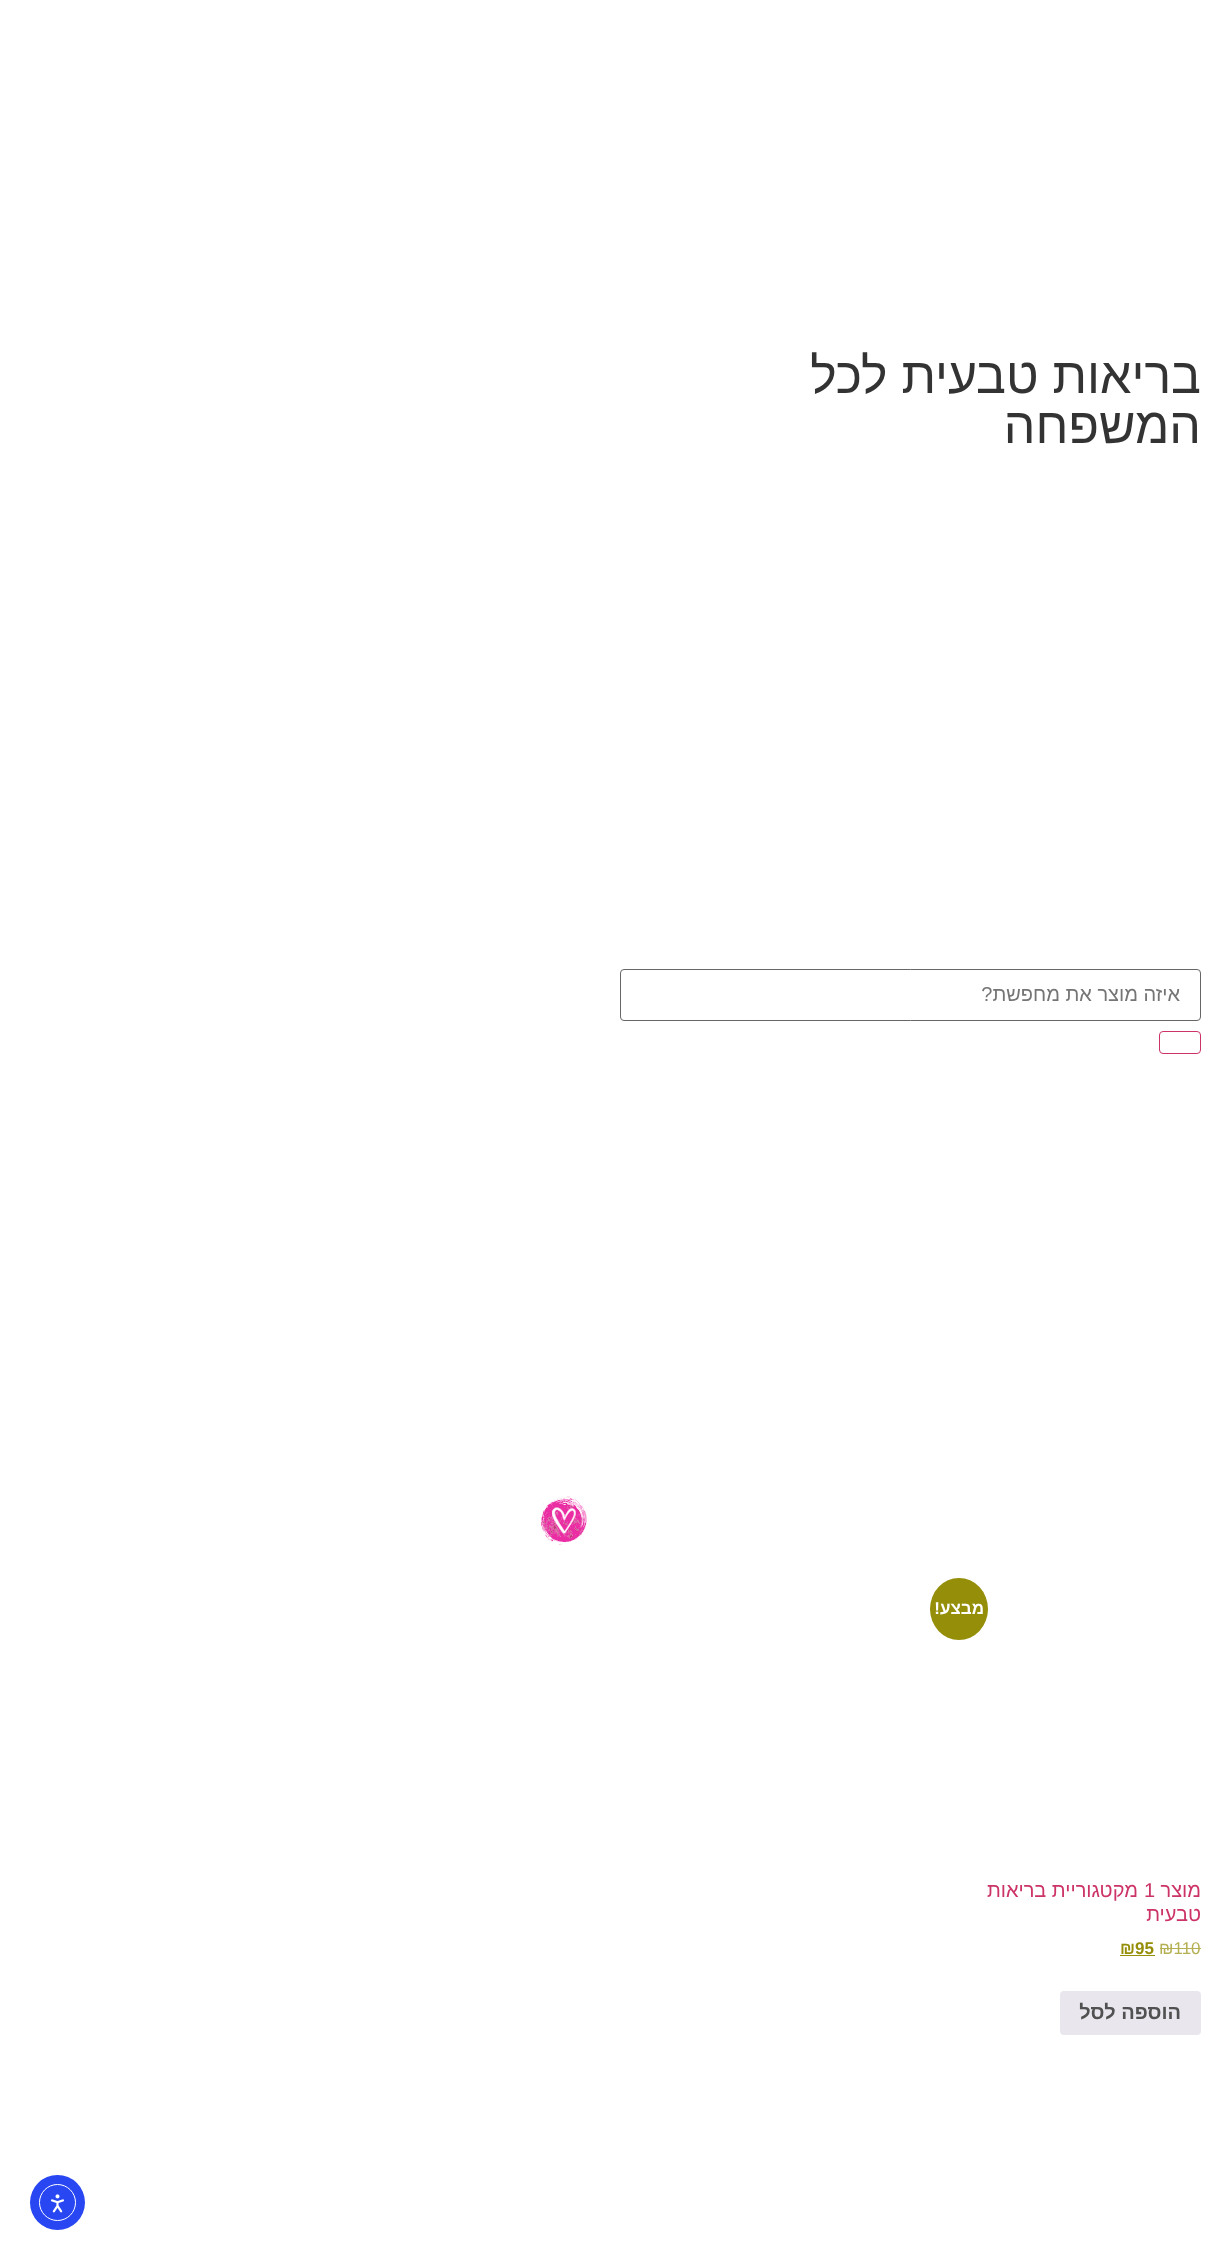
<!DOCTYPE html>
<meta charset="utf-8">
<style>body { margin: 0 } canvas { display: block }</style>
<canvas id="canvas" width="1213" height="2259"></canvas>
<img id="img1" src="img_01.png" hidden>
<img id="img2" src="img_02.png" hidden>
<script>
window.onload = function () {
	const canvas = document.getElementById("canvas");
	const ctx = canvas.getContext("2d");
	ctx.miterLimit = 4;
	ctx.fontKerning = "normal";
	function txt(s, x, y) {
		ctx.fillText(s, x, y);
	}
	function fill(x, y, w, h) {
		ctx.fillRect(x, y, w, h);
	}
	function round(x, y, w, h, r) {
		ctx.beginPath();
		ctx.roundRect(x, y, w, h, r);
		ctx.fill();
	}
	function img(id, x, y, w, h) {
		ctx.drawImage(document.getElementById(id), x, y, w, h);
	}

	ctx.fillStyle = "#FFFFFF";
	fill(0, 0, 1213, 2259);
	ctx.beginPath();
	ctx.roundRect(620.5, 969.5, 580, 51, 3.5);
	ctx.strokeStyle = "#666666";
	ctx.stroke();
	ctx.beginPath();
	ctx.roundRect(1159.5, 1031.5, 41, 22, 3.5);
	ctx.strokeStyle = "#CC3366";
	ctx.stroke();
	img("img1", 541, 1496, 46, 49);
	ctx.fillStyle = "#958E09";
	ctx.beginPath();
	ctx.ellipse(959, 1609, 29, 31, 0, 0, Math.PI * 2);
	ctx.fill();
	ctx.fillStyle = "#B5B053";
	fill(1160, 1948, 41, 1);
	ctx.fillStyle = "#958E09";
	fill(1120, 1955, 35, 1);
	ctx.fillStyle = "#E9E6ED";
	round(1060, 1991, 141, 44, 4);
	ctx.fillStyle = "#2847F3";
	ctx.beginPath();
	ctx.arc(57.5, 2202.5, 27.5, 0, Math.PI * 2);
	ctx.fill();
	ctx.beginPath();
	ctx.arc(57.5, 2202.5, 18, 0, Math.PI * 2);
	ctx.strokeStyle = "#FFFFFF";
	ctx.stroke();
	img("img2", 50, 2194, 14, 19);
	ctx.direction = "rtl";
	ctx.font = "50px Liberation Sans";
	ctx.fillStyle = "#333333";
	txt("בריאות טבעית לכל", 1201, 393);
	txt("המשפחה", 1201, 443);
	ctx.font = "20px Liberation Sans";
	ctx.fillStyle = "#757575";
	txt("איזה מוצר את מחפשת?", 1180, 1001);
	ctx.font = "bold 17px Liberation Sans";
	ctx.fillStyle = "#FFFFFF";
	txt("מבצע!", 984, 1614);
	ctx.font = "20px Liberation Sans";
	ctx.fillStyle = "#CC3366";
	txt("מוצר", 1201, 1897);
	ctx.direction = "ltr";
	txt("1", 1144, 1897);
	ctx.direction = "rtl";
	txt("מקטגוריית בריאות", 1138, 1897);
	txt("טבעית", 1201, 1921);
	ctx.direction = "ltr";
	ctx.font = "17px Liberation Sans";
	ctx.fillStyle = "#B5B053";
	txt("₪110", 1159, 1954);
	ctx.font = "bold 17px Liberation Sans";
	ctx.fillStyle = "#958E09";
	txt("₪95", 1120, 1954);
	ctx.direction = "rtl";
	ctx.font = "bold 20px Liberation Sans";
	ctx.fillStyle = "#515151";
	txt("הוספה לסל", 1181, 2019);
};
</script>
